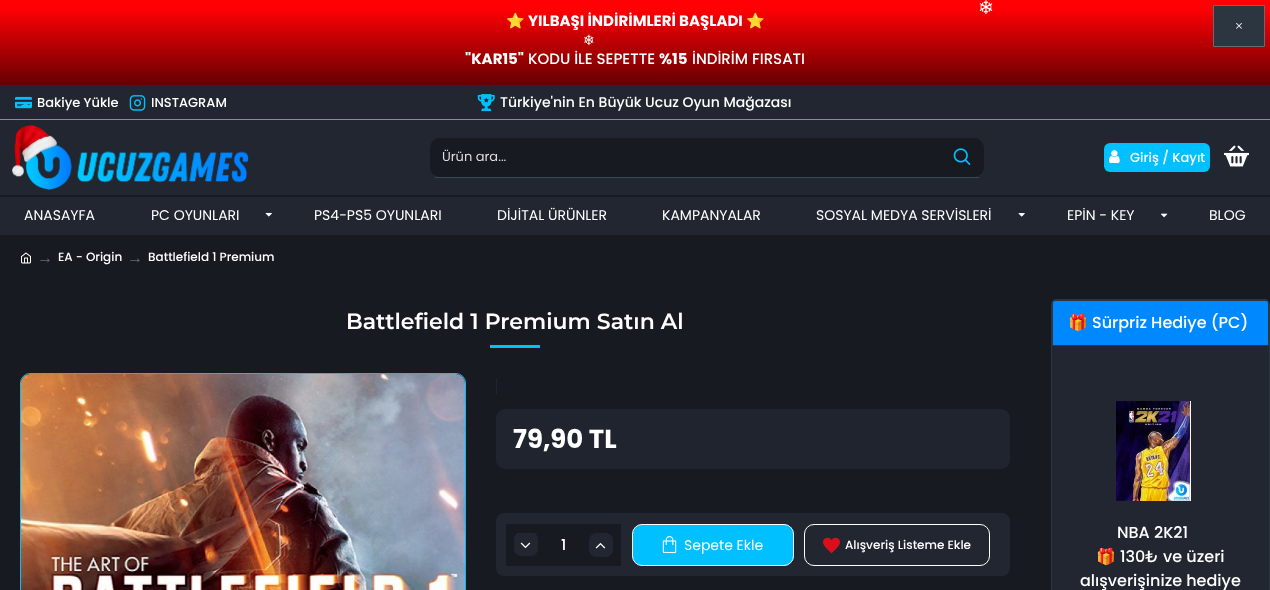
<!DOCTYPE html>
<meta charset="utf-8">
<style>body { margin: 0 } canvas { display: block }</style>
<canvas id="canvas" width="1270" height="590"></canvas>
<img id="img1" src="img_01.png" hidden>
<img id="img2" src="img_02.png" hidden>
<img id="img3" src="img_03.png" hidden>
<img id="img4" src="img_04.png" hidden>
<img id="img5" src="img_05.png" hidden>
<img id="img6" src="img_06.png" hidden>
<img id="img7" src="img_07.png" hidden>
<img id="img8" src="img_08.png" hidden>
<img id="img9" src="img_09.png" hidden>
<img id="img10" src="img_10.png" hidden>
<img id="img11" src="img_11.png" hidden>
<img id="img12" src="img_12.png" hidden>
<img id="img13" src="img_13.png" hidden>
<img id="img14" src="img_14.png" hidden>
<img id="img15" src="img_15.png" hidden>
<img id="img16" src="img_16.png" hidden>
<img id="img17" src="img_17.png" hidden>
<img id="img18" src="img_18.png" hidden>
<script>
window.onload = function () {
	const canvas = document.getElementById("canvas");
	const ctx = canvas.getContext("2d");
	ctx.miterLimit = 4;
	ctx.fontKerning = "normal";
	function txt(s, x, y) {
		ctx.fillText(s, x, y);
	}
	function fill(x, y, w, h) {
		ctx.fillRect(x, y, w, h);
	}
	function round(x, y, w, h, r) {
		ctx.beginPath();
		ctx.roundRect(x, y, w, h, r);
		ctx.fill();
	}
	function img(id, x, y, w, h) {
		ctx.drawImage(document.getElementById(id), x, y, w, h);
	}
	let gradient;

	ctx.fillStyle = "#171A21";
	fill(0, 0, 1270, 590);
	gradient = ctx.createLinearGradient(635, 85, 635, 0);
	gradient.addColorStop(0, "#660002");
	gradient.addColorStop(0.9, "#FF0004");
	ctx.fillStyle = gradient;
	fill(0, 0, 1270, 85);
	ctx.fillStyle = "#2C3640";
	ctx.beginPath();
	ctx.rect(1213.5, 5.5, 51, 41);
	ctx.fill();
	ctx.strokeStyle = "#696973";
	ctx.stroke();
	img("img1", 1236, 23, 6, 6);
	ctx.fillStyle = "#212630";
	fill(0, 85, 1270, 150);
	img("img2", 15, 96, 17, 13);
	img("img3", 129, 95, 17, 16);
	img("img4", 477, 94, 18, 18);
	img("img5", 12, 125, 237, 66);
	ctx.fillStyle = "#3A4754";
	fill(435, 177, 544, 1);
	ctx.fillStyle = "#171A21";
	ctx.beginPath();
	ctx.roundRect(430, 138, 509, 39, [10, 0, 0, 10]);
	ctx.fill();
	ctx.beginPath();
	ctx.roundRect(939, 138, 45, 39, [0, 10, 10, 0]);
	ctx.fill();
	img("img6", 953, 148, 18, 17);
	ctx.fillStyle = "#00C0FF";
	round(1104, 143, 106, 29, 6);
	img("img7", 1109, 150, 11, 13);
	img("img8", 1224, 145, 25, 22);
	ctx.fillStyle = "#171A21";
	fill(0, 195, 1270, 2);
	img("img9", 265, 212, 7, 5);
	img("img10", 1018, 213, 7, 4);
	img("img11", 1161, 213, 7, 5);
	ctx.fillStyle = "#00C0FF";
	fill(0, 119, 1270, 1);
	img("img12", 21, 252, 10, 12);
	fill(490, 345, 50, 3);
	ctx.beginPath();
	ctx.roundRect(20.5, 373.5, 445, 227, 9.5);
	ctx.strokeStyle = "#00C0FF";
	ctx.stroke();
	img("img13", 21, 374, 444, 216);
	ctx.fillStyle = "#1F242E";
	fill(496, 378, 1, 16);
	round(496, 409, 514, 60, 9);
	ctx.fillStyle = "#212630";
	round(496, 513, 514, 63, 8);
	ctx.fillStyle = "#171A21";
	fill(506, 524, 115, 42);
	ctx.fillStyle = "#212630";
	round(514, 532, 24, 24, 7);
	ctx.fillStyle = "#171A21";
	fill(518, 532, 17, 1);
	img("img14", 520, 542, 11, 7);
	ctx.fillStyle = "#212630";
	round(589, 533, 24, 24, 7);
	img("img15", 595, 543, 11, 6);
	ctx.fillStyle = "#00C0FF";
	ctx.beginPath();
	ctx.roundRect(632.5, 524.5, 161, 41, 9.5);
	ctx.fill();
	ctx.strokeStyle = "#FFFFFF";
	ctx.stroke();
	img("img16", 662, 536, 15, 18);
	ctx.beginPath();
	ctx.roundRect(804.5, 524.5, 185, 41, 9.5);
	ctx.stroke();
	img("img17", 823, 537, 17, 17);
	ctx.fillStyle = "#212630";
	ctx.beginPath();
	ctx.roundRect(1051.5, 299.5, 218, 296, 4.5);
	ctx.fill();
	ctx.strokeStyle = "#2C3640";
	ctx.stroke();
	ctx.fillStyle = "#0088FF";
	ctx.beginPath();
	ctx.roundRect(1052.5, 300.5, 216, 45, [2.5, 2.5, 0, 0]);
	ctx.fill();
	ctx.stroke();
	img("img18", 1116, 401, 75, 100);
	ctx.font = "19px DejaVu Sans";
	ctx.fillStyle = "#FFFFFF";
	txt("❄", 978, 14);
	ctx.font = "bold 15px Noto Color Emoji";
	txt("⭐️", 506, 26);
	ctx.font = "bold 15px Poppins";
	txt("YILBAŞI İNDİRİMLERİ BAŞLADI", 528, 26);
	ctx.font = "bold 15px Noto Color Emoji";
	txt("⭐️", 746, 26);
	ctx.font = "bold 15px Poppins";
	txt("\"KAR15\"", 465, 64);
	ctx.font = "500 15px Poppins";
	txt("KODU İLE SEPETTE", 528, 64);
	ctx.font = "bold 15px Poppins";
	txt("%15", 659, 64);
	ctx.font = "500 15px Poppins";
	txt("İNDİRİM FIRSATI", 692, 64);
	ctx.font = "500 13px Poppins";
	txt("Bakiye Yükle", 37, 107);
	txt("INSTAGRAM", 151, 107);
	ctx.font = "500 14px Poppins";
	txt("Türkiye'nin En Büyük Ucuz Oyun Mağazası", 500, 107);
	ctx.font = "13px Poppins";
	ctx.fillStyle = "#DDDDDD";
	txt("Ürün ara...", 442, 161);
	ctx.font = "500 13px Poppins";
	ctx.fillStyle = "#FFFFFF";
	txt("Giriş / Kayıt", 1130, 162);
	ctx.font = "14px Poppins";
	txt("ANASAYFA", 24, 220);
	txt("PC OYUNLARI", 151, 220);
	txt("PS4-PS5 OYUNLARI", 314, 220);
	txt("DİJİTAL ÜRÜNLER", 497, 220);
	txt("KAMPANYALAR", 662, 220);
	txt("SOSYAL MEDYA SERVİSLERİ", 816, 220);
	txt("EPİN - KEY", 1067, 220);
	txt("BLOG", 1209, 220);
	ctx.font = "16px Liberation Serif";
	ctx.fillStyle = "#696973";
	txt("→", 37, 263);
	ctx.font = "500 12px Poppins";
	ctx.fillStyle = "#FFFFFF";
	txt("EA - Origin", 58, 261);
	ctx.font = "16px Liberation Serif";
	ctx.fillStyle = "#696973";
	txt("→", 127, 263);
	ctx.font = "500 12px Poppins";
	ctx.fillStyle = "#FFFFFF";
	txt("Battlefield 1 Premium", 148, 261);
	ctx.font = "600 22px Montserrat";
	txt("Battlefield 1 Premium Satın Al", 346, 329);
	ctx.font = "bold 26px Poppins";
	txt("79,90 TL", 513, 448);
	ctx.font = "500 15px Poppins";
	txt("1", 561, 550);
	ctx.font = "14px Poppins";
	txt("Sepete Ekle", 684, 550);
	ctx.font = "500 12px Poppins";
	txt("Alışveriş Listeme Ekle", 845, 549);
	ctx.font = "16px Noto Color Emoji";
	txt("🎁", 1068, 328);
	ctx.font = "500 16px Poppins";
	txt("Sürpriz Hediye (PC)", 1092, 328);
	txt("NBA 2K21", 1117, 538);
	ctx.font = "16px Noto Color Emoji";
	txt("🎁", 1096, 562);
	ctx.font = "500 16px Poppins";
	txt("130₺ ve üzeri", 1120, 562);
	txt("alışverişinize hediye", 1080, 586);
	ctx.font = "14px DejaVu Sans";
	txt("❄", 583, 45);
};
</script>
